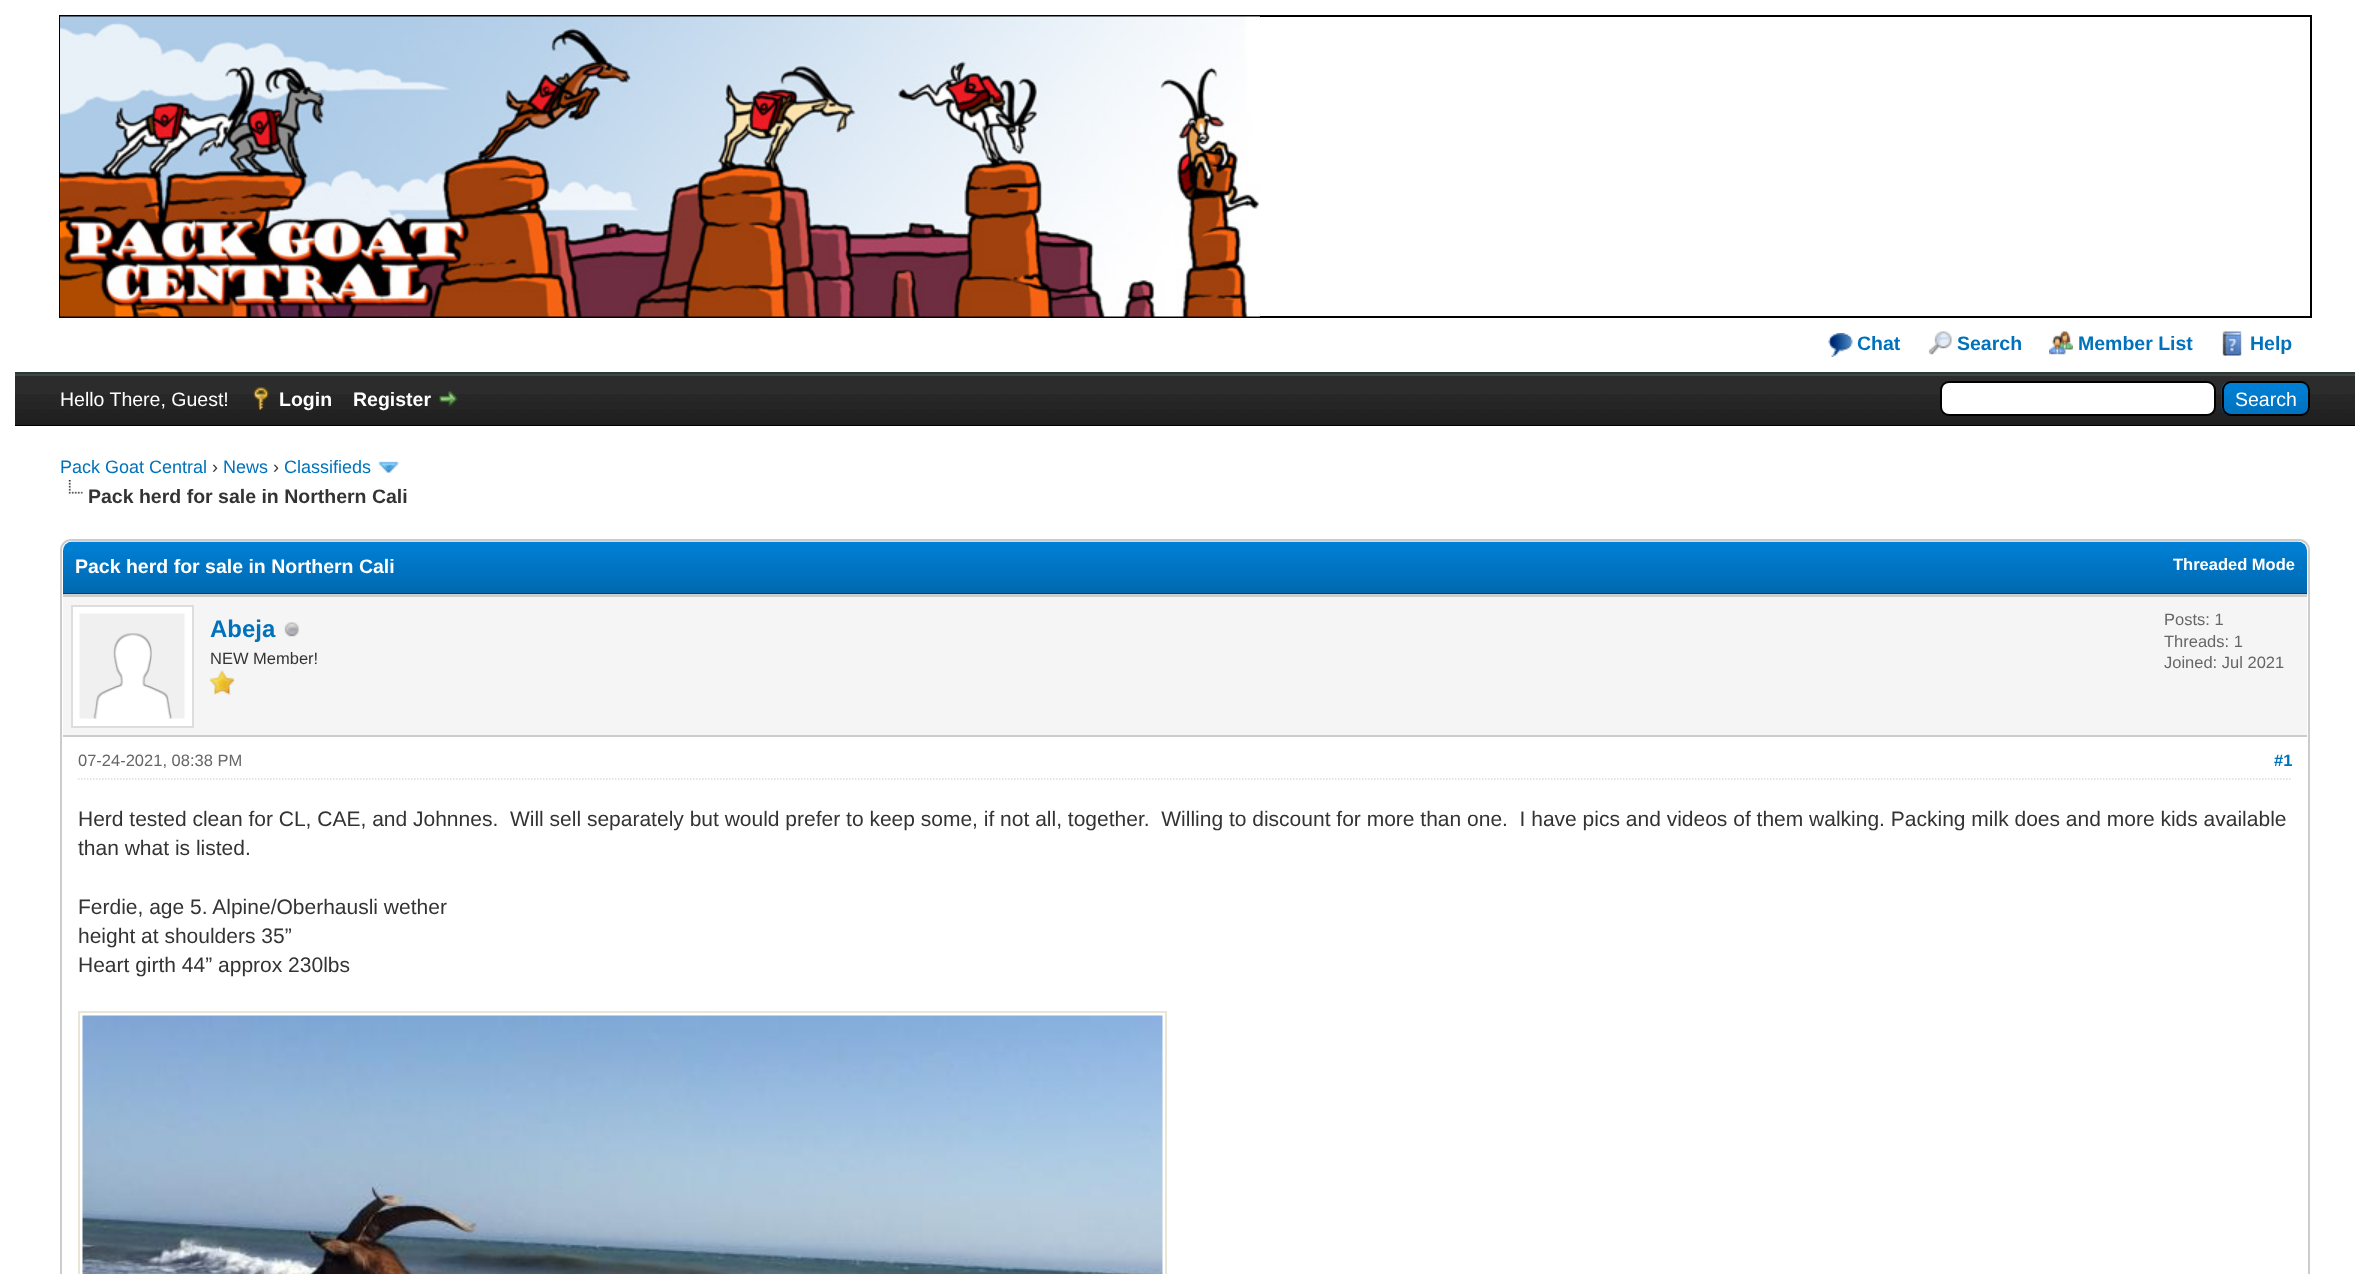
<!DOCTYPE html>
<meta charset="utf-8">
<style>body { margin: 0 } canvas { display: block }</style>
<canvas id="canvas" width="2369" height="1274"></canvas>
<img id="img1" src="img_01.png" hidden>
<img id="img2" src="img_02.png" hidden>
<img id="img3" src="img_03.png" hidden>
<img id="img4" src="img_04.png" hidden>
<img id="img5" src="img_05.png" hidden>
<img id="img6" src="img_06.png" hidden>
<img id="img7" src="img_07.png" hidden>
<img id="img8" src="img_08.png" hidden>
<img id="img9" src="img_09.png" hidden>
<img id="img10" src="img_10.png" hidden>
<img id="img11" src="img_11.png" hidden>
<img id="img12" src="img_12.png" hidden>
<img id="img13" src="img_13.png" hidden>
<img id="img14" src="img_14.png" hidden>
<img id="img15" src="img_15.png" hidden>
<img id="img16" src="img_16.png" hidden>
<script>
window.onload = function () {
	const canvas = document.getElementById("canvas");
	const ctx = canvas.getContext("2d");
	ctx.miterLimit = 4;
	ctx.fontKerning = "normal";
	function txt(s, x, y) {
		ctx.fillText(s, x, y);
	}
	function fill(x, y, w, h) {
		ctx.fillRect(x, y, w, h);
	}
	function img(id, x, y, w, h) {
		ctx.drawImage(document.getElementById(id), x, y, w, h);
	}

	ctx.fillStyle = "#FFFFFF";
	fill(0, 0, 2369, 1274);
	ctx.fillStyle = "#263C30";
	fill(15, 372, 2340, 2);
	ctx.strokeStyle = "#000000";
	ctx.lineWidth = 2;
	ctx.strokeRect(60, 16, 2251, 301);
	img("img1", 60, 16, 1200, 301);
	img("img2", 1828, 333, 25, 24);
	img("img3", 1928, 331, 24, 24);
	img("img4", 2049, 331, 24, 24);
	img("img5", 2222, 331, 20, 25);
	img("img6", 15, 376, 2340, 49);
	ctx.fillStyle = "#444444";
	fill(15, 374, 2340, 2);
	ctx.fillStyle = "#000000";
	fill(15, 425, 2340, 1);
	img("img7", 253, 387, 16, 23);
	img("img8", 439, 391, 19, 16);
	ctx.fillStyle = "#FFFFFF";
	ctx.beginPath();
	ctx.roundRect(1941, 382, 274, 33, 8);
	ctx.fill();
	ctx.stroke();
	img("img9", 2221, 382, 89, 34);
	ctx.beginPath();
	ctx.roundRect(2223, 382, 86, 33, 8);
	ctx.stroke();
	img("img10", 378, 461, 22, 12);
	img("img11", 68, 480, 15, 14);
	ctx.beginPath();
	ctx.roundRect(61, 540, 2248, 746, 10);
	ctx.strokeStyle = "#CCCCCC";
	ctx.stroke();
	img("img12", 63, 541, 2244, 52);
	ctx.fillStyle = "#263C30";
	fill(63, 593, 2244, 1);
	ctx.fillStyle = "#F5F5F5";
	fill(63, 597, 2244, 138);
	ctx.fillStyle = "#CCCCCC";
	fill(63, 594, 2244, 3);
	fill(63, 735, 2244, 2);
	ctx.fillStyle = "#FFFFFF";
	ctx.beginPath();
	ctx.rect(72, 606, 121, 121);
	ctx.fill();
	ctx.strokeStyle = "#DDDDDD";
	ctx.stroke();
	img("img13", 79, 613, 106, 106);
	img("img14", 284, 622, 15, 15);
	img("img15", 210, 670, 24, 25);
	ctx.beginPath();
	ctx.moveTo(78, 779);
	ctx.lineTo(2292, 779);
	ctx.lineWidth = 1.5;
	ctx.setLineDash([1.5, 1.5]);
	ctx.stroke();
	ctx.strokeStyle = "#E9E5D7";
	ctx.lineWidth = 2;
	ctx.setLineDash([]);
	ctx.strokeRect(79, 1012, 1087, 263);
	img("img16", 82, 1015, 1081, 259);
	ctx.font = "bold 19.5px Liberation Sans";
	ctx.fillStyle = "#0072BC";
	txt("Chat", 1857, 350);
	txt("Search", 1957, 350);
	txt("Member List", 2078, 350);
	txt("Help", 2250, 350);
	ctx.font = "19.5px Liberation Sans";
	ctx.fillStyle = "#FFFFFF";
	txt("Hello There, Guest!", 60, 406);
	ctx.font = "bold 19.5px Liberation Sans";
	txt("Login", 279, 406);
	txt("Register", 353, 406);
	ctx.font = "19.5px Liberation Sans";
	txt("Search", 2235, 406);
	ctx.font = "18px Liberation Sans";
	ctx.fillStyle = "#0072BC";
	txt("Pack Goat Central", 60, 473);
	ctx.fillStyle = "#333333";
	txt("›", 212, 473);
	ctx.fillStyle = "#0072BC";
	txt("News", 223, 473);
	ctx.fillStyle = "#333333";
	txt("›", 273, 473);
	ctx.fillStyle = "#0072BC";
	txt("Classifieds", 284, 473);
	ctx.font = "bold 19.5px Liberation Sans";
	ctx.fillStyle = "#333333";
	txt("Pack herd for sale in Northern Cali", 88, 503);
	ctx.fillStyle = "#FFFFFF";
	txt("Pack herd for sale in Northern Cali", 75, 573);
	ctx.font = "bold 16.5px Liberation Sans";
	txt("Threaded Mode", 2173, 570);
	ctx.font = "bold 24px Liberation Sans";
	ctx.fillStyle = "#0072BC";
	txt("Abeja", 210, 637);
	ctx.font = "16.5px Liberation Sans";
	ctx.fillStyle = "#333333";
	txt("NEW Member!", 210, 664);
	ctx.fillStyle = "#666666";
	txt("Posts: 1", 2164, 625);
	txt("Threads: 1", 2164, 647);
	txt("Joined: Jul 2021", 2164, 668);
	txt("07-24-2021, 08:38 PM", 78, 766);
	ctx.font = "bold 16.5px Liberation Sans";
	ctx.fillStyle = "#0072BC";
	txt("#1", 2274, 766);
	ctx.font = "21px Liberation Sans";
	ctx.fillStyle = "#333333";
	txt("Herd tested clean for CL, CAE, and Johnnes.  Will sell separately but would prefer to keep some, if not all, together.  Willing to discount for more than one.  I have pics and videos of them walking. Packing milk does and more kids available", 78, 826);
	txt("than what is listed.", 78, 855);
	txt("Ferdie, age 5. Alpine/Oberhausli wether", 78, 914);
	txt("height at shoulders 35”", 78, 943);
	txt("Heart girth 44” approx 230lbs", 78, 972);
};
</script>
